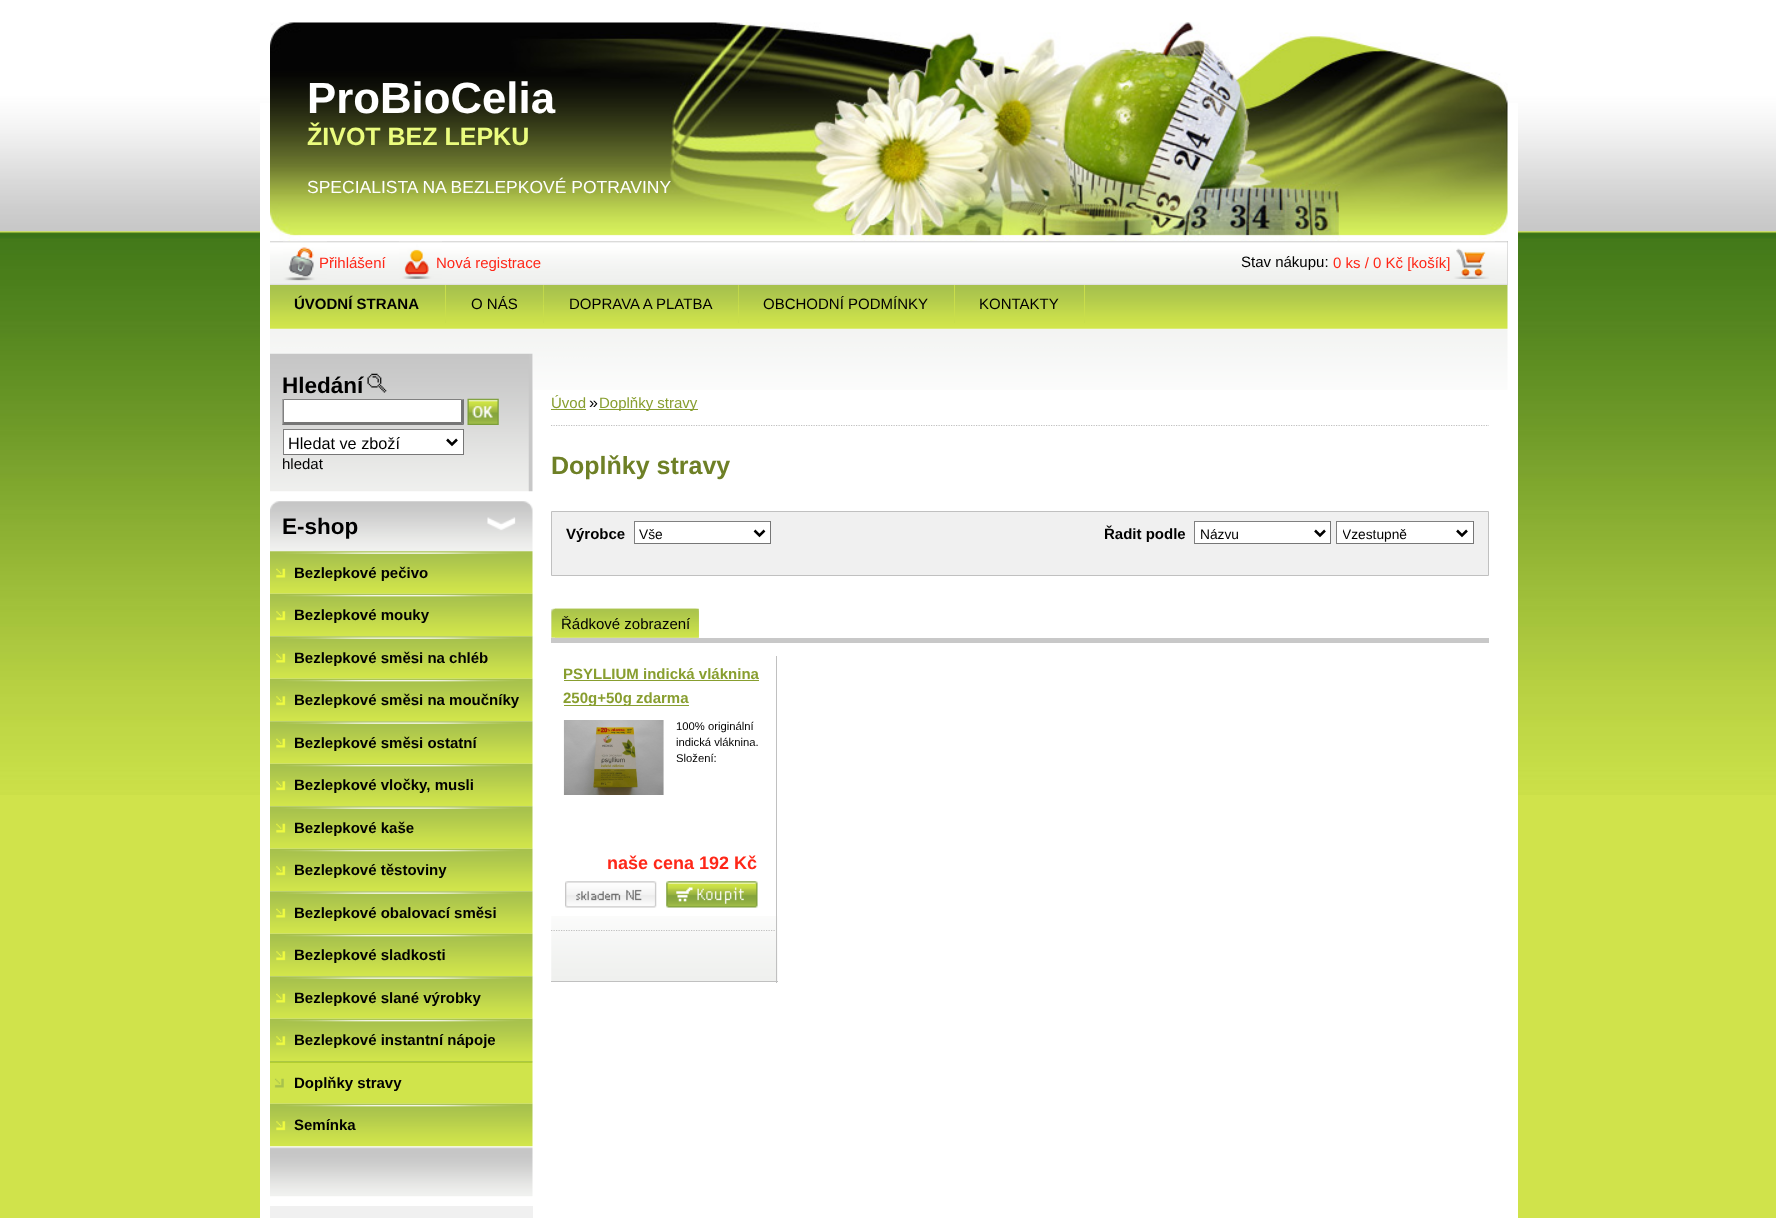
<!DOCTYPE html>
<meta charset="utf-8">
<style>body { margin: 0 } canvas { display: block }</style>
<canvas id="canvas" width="1776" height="1218"></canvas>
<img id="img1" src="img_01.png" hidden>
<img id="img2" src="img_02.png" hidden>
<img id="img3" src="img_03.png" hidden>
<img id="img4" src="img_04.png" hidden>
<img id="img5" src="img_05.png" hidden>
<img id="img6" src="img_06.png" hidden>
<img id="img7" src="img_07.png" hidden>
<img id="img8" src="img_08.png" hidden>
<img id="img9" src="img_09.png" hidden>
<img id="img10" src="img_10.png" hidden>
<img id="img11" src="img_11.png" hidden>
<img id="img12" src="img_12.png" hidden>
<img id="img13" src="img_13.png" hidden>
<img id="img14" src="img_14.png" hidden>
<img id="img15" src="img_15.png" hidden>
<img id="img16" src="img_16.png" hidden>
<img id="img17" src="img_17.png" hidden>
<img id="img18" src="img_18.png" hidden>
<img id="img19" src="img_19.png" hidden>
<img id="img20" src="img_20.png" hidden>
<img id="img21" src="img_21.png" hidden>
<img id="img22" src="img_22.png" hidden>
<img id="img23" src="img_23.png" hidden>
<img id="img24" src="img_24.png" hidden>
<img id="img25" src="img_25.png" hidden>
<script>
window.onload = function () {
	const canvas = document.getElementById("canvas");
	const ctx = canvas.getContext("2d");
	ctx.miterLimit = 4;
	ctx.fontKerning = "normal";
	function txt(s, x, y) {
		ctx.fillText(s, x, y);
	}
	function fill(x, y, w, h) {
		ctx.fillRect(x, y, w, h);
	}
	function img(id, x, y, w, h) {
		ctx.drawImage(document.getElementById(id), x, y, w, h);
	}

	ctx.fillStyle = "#D0E34B";
	fill(0, 0, 1776, 1218);
	img("img1", 0, 0, 1776, 795);
	ctx.fillStyle = "#FFFFFF";
	fill(260, 103, 1258, 1115);
	img("img2", 270, 22, 1238, 219);
	ctx.fillStyle = "#C0C0C0";
	fill(270, 241, 1238, 44);
	img("img3", 270, 241, 1238, 44);
	img("img4", 283, 241, 44, 40);
	img("img5", 399, 241, 43, 38);
	img("img6", 1451, 241, 44, 38);
	img("img7", 270, 285, 1238, 44);
	ctx.fillStyle = "#C9DE4B";
	fill(445, 285, 1, 38);
	fill(543, 285, 1, 38);
	img("img8", 543, 285, 1, 20);
	fill(738, 285, 1, 38);
	img("img8", 738, 285, 1, 20);
	fill(954, 285, 1, 38);
	fill(1084, 285, 1, 38);
	img("img9", 270, 329, 1238, 61);
	ctx.fillStyle = "#FFFFFF";
	fill(532, 354, 1, 36);
	img("img10", 270, 353, 263, 139);
	img("img11", 367, 373, 20, 20);
	fill(283, 399, 181, 26);
	ctx.fillStyle = "#808080";
	ctx.beginPath();
	ctx.moveTo(282, 399);
	ctx.lineTo(464, 399);
	ctx.lineTo(461, 400);
	ctx.lineTo(284, 400);
	ctx.closePath();
	ctx.fill();
	ctx.fillStyle = "#767676";
	ctx.beginPath();
	ctx.moveTo(464, 399);
	ctx.lineTo(464, 425);
	ctx.lineTo(461, 422.5);
	ctx.lineTo(461, 400);
	ctx.closePath();
	ctx.fill();
	ctx.beginPath();
	ctx.moveTo(464, 425);
	ctx.lineTo(282, 425);
	ctx.lineTo(284, 422);
	ctx.lineTo(461, 422);
	ctx.closePath();
	ctx.fill();
	ctx.fillStyle = "#808080";
	ctx.beginPath();
	ctx.moveTo(282.5, 425);
	ctx.lineTo(282.5, 399);
	ctx.lineTo(284, 400);
	ctx.lineTo(284, 422.5);
	ctx.closePath();
	ctx.fill();
	img("img12", 467, 398, 32, 27);
	ctx.fillStyle = "#FFFFFF";
	fill(284, 430, 179, 24);
	ctx.fillStyle = "#808080";
	fill(283, 429, 181, 1);
	ctx.fillStyle = "#767676";
	fill(463, 429, 1, 26);
	fill(283, 454, 181, 1);
	ctx.fillStyle = "#808080";
	fill(283, 429, 1, 26);
	ctx.beginPath();
	ctx.moveTo(447, 439.5);
	ctx.lineTo(452, 444.5);
	ctx.lineTo(457, 439.5);
	ctx.strokeStyle = "#000000";
	ctx.lineWidth = 2.5;
	ctx.stroke();
	img("img13", 270, 501, 263, 51);
	img("img14", 270, 551, 263, 43);
	img("img15", 270, 593, 263, 44);
	img("img16", 270, 636, 263, 43);
	img("img15", 270, 678, 263, 44);
	img("img16", 270, 721, 263, 43);
	img("img15", 270, 763, 263, 44);
	img("img16", 270, 806, 263, 43);
	img("img15", 270, 848, 263, 44);
	img("img16", 270, 891, 263, 43);
	img("img15", 270, 933, 263, 44);
	img("img16", 270, 976, 263, 43);
	img("img15", 270, 1018, 263, 44);
	img("img17", 270, 1061, 263, 43);
	img("img18", 270, 1103, 263, 44);
	img("img19", 270, 1147, 263, 50);
	ctx.fillStyle = "#F0F0F0";
	fill(270, 1206, 263, 12);
	ctx.beginPath();
	ctx.moveTo(551, 425.5);
	ctx.lineTo(1489, 425.5);
	ctx.strokeStyle = "#C0C0C0";
	ctx.lineWidth = 1.2;
	ctx.setLineDash([1.25, 1.25]);
	ctx.stroke();
	ctx.fillStyle = "#889E2F";
	fill(551, 409, 35, 1);
	fill(599, 409, 99, 1);
	ctx.fillStyle = "#F0F0F0";
	ctx.beginPath();
	ctx.rect(551.5, 511.5, 937, 64);
	ctx.fill();
	ctx.lineWidth = 1;
	ctx.setLineDash([]);
	ctx.stroke();
	ctx.fillStyle = "#FFFFFF";
	fill(635, 522, 135, 21);
	ctx.fillStyle = "#808080";
	fill(634, 521, 137, 1);
	ctx.fillStyle = "#767676";
	fill(770, 521, 1, 23);
	fill(634, 543, 137, 1);
	ctx.fillStyle = "#808080";
	fill(634, 521, 1, 23);
	ctx.beginPath();
	ctx.moveTo(754.5, 530.5);
	ctx.lineTo(759.5, 535.5);
	ctx.lineTo(764.5, 530.5);
	ctx.strokeStyle = "#000000";
	ctx.lineWidth = 2.5;
	ctx.stroke();
	ctx.fillStyle = "#FFFFFF";
	fill(1195, 522, 135, 21);
	ctx.fillStyle = "#808080";
	fill(1194, 521, 137, 1);
	ctx.fillStyle = "#767676";
	fill(1330, 521, 1, 23);
	fill(1194, 543, 137, 1);
	ctx.fillStyle = "#808080";
	fill(1194, 521, 1, 23);
	ctx.beginPath();
	ctx.moveTo(1315, 530.5);
	ctx.lineTo(1320, 535.5);
	ctx.lineTo(1325, 530.5);
	ctx.stroke();
	ctx.fillStyle = "#FFFFFF";
	fill(1337, 522, 136, 21);
	ctx.fillStyle = "#808080";
	fill(1336, 521, 138, 1);
	ctx.fillStyle = "#767676";
	fill(1473, 521, 1, 23);
	fill(1336, 543, 138, 1);
	ctx.fillStyle = "#808080";
	fill(1336, 521, 1, 23);
	ctx.beginPath();
	ctx.moveTo(1457, 530.5);
	ctx.lineTo(1462, 535.5);
	ctx.lineTo(1467, 530.5);
	ctx.stroke();
	ctx.fillStyle = "#E7E7E7";
	fill(551, 609, 148, 29);
	img("img20", 551, 608, 148, 30);
	img("img21", 555, 608, 144, 30);
	ctx.fillStyle = "#C8C8C8";
	fill(551, 638, 938, 5);
	img("img22", 551, 916, 227, 65);
	ctx.fillStyle = "#C0C0C0";
	fill(776, 656, 1, 327);
	fill(551, 981, 227, 1);
	ctx.fillStyle = "#889E2F";
	fill(564, 680, 195, 1);
	fill(564, 705, 125, 1);
	img("img23", 563, 720, 101, 75);
	img("img24", 565, 881, 92, 27);
	img("img25", 666, 881, 92, 27);
	ctx.beginPath();
	ctx.moveTo(551, 930.5);
	ctx.lineTo(776, 930.5);
	ctx.strokeStyle = "#C0C0C0";
	ctx.lineWidth = 1.2;
	ctx.setLineDash([1.25, 1.25]);
	ctx.stroke();
	ctx.font = "bold 43.75px Liberation Sans";
	ctx.fillStyle = "#FFFFFF";
	txt("ProBioCelia", 307, 113);
	ctx.font = "bold 25px Liberation Sans";
	ctx.fillStyle = "#EBFC7E";
	txt("ŽIVOT BEZ LEPKU", 307, 145);
	ctx.font = "17.5px Liberation Sans";
	ctx.fillStyle = "#FFFFFF";
	txt("SPECIALISTA NA BEZLEPKOVÉ POTRAVINY", 307, 193);
	ctx.font = "15px Liberation Sans";
	ctx.fillStyle = "#FE2718";
	txt("Přihlášení", 319, 268);
	txt("Nová registrace", 436, 268);
	ctx.fillStyle = "#000000";
	txt("Stav nákupu:", 1241, 267);
	ctx.fillStyle = "#FE2718";
	txt("0 ks / 0 Kč [košík]", 1333, 268);
	ctx.font = "bold 15px Liberation Sans";
	ctx.fillStyle = "#000000";
	txt("ÚVODNÍ STRANA", 294, 309);
	ctx.font = "15px Liberation Sans";
	txt("O NÁS", 471, 309);
	txt("DOPRAVA A PLATBA", 569, 309);
	txt("OBCHODNÍ PODMÍNKY", 763, 309);
	txt("KONTAKTY", 979, 309);
	ctx.font = "bold 22.5px Liberation Sans";
	txt("Hledání", 282, 393);
	ctx.font = "16.25px Liberation Sans";
	txt("Hledat ve zboží", 288, 449);
	ctx.font = "15px Liberation Sans";
	txt("hledat", 282, 469);
	ctx.font = "bold 22.5px Liberation Sans";
	txt("E-shop", 282, 534);
	ctx.font = "bold 15px Liberation Sans";
	txt("Bezlepkové pečivo", 294, 578);
	txt("Bezlepkové mouky", 294, 620);
	txt("Bezlepkové směsi na chléb", 294, 663);
	txt("Bezlepkové směsi na moučníky", 294, 705);
	txt("Bezlepkové směsi ostatní", 294, 748);
	txt("Bezlepkové vločky, musli", 294, 790);
	txt("Bezlepkové kaše", 294, 833);
	txt("Bezlepkové těstoviny", 294, 875);
	txt("Bezlepkové obalovací směsi", 294, 918);
	txt("Bezlepkové sladkosti", 294, 960);
	txt("Bezlepkové slané výrobky", 294, 1003);
	txt("Bezlepkové instantní nápoje", 294, 1045);
	txt("Doplňky stravy", 294, 1088);
	txt("Semínka", 294, 1130);
	ctx.font = "15px Liberation Sans";
	ctx.fillStyle = "#889E2F";
	txt("Úvod", 551, 408);
	ctx.font = "16px Liberation Sans";
	ctx.fillStyle = "#000000";
	txt("»", 589, 408);
	ctx.font = "15px Liberation Sans";
	ctx.fillStyle = "#889E2F";
	txt("Doplňky stravy", 599, 408);
	ctx.font = "bold 25px Liberation Sans";
	ctx.fillStyle = "#6E8026";
	txt("Doplňky stravy", 551, 474);
	ctx.font = "bold 15px Liberation Sans";
	ctx.fillStyle = "#000000";
	txt("Výrobce", 566, 539);
	ctx.font = "13.75px Liberation Sans";
	txt("Vše", 639, 539);
	ctx.font = "bold 15px Liberation Sans";
	txt("Řadit podle", 1104, 539);
	ctx.font = "13.75px Liberation Sans";
	txt("Názvu", 1200, 539);
	ctx.save();
	ctx.beginPath();
	ctx.rect(1343, 525, 110, 18);
	ctx.clip();
	txt("Vzestupně", 1342, 539);
	ctx.restore();
	ctx.font = "15px Liberation Sans";
	txt("Řádkové zobrazení", 561, 629);
	ctx.font = "bold 15px Liberation Sans";
	ctx.fillStyle = "#889E2F";
	txt("PSYLLIUM indická vláknina", 563, 679);
	ctx.save();
	ctx.beginPath();
	ctx.rect(551, 656, 225, 50);
	ctx.clip();
	txt("250g+50g zdarma", 563, 703);
	ctx.restore();
	ctx.font = "11.25px Liberation Sans";
	ctx.fillStyle = "#000000";
	txt("100% originální", 676, 730);
	txt("indická vláknina.", 676, 746);
	txt("Složení:", 676, 762);
	ctx.font = "bold 18px Liberation Sans";
	ctx.fillStyle = "#FE2718";
	txt("naše cena 192 Kč", 607, 869);
};
</script>
